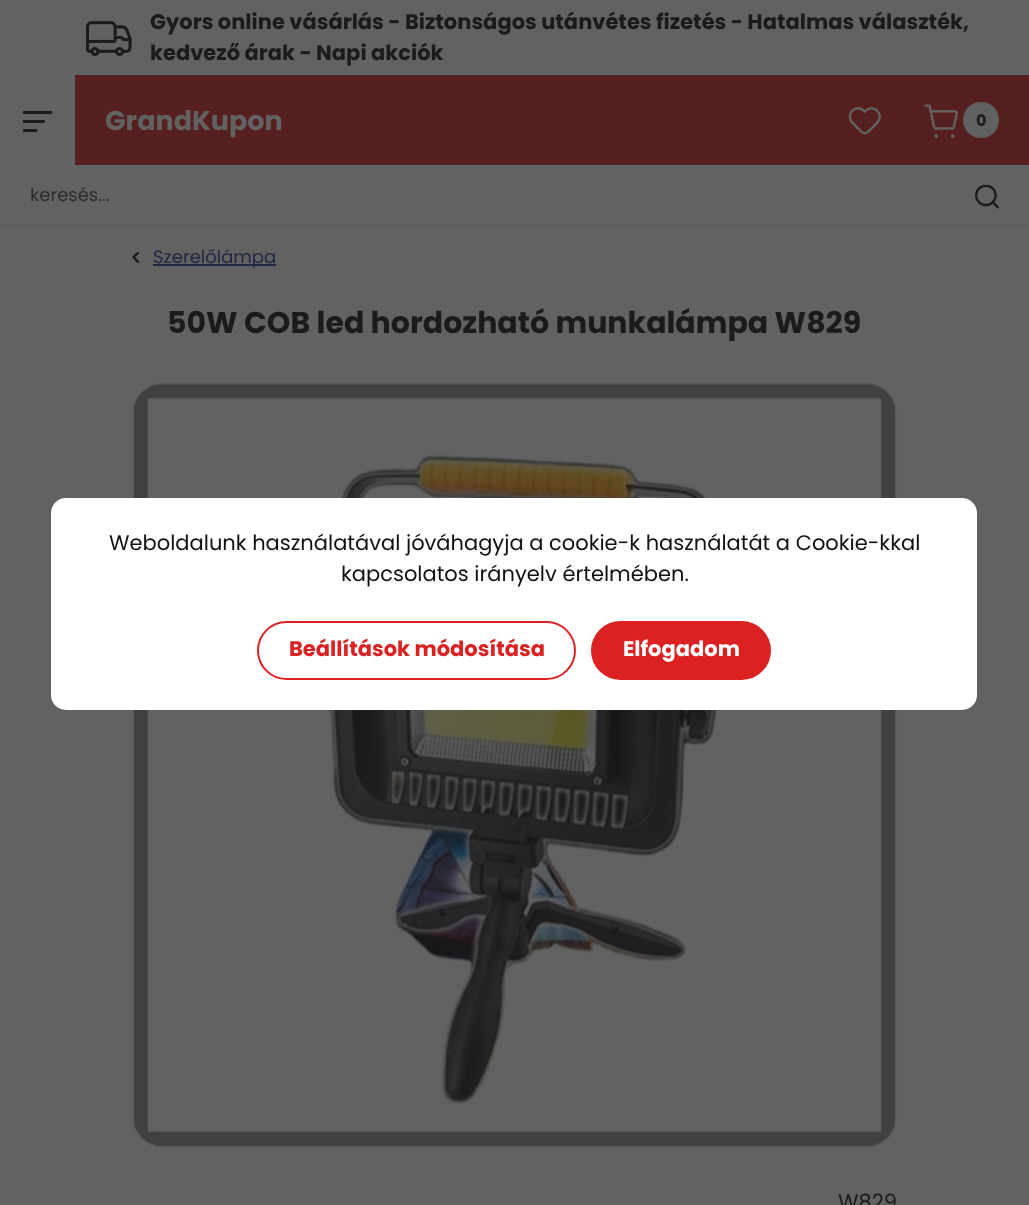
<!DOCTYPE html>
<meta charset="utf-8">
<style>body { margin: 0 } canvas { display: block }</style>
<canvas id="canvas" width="1029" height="1205"></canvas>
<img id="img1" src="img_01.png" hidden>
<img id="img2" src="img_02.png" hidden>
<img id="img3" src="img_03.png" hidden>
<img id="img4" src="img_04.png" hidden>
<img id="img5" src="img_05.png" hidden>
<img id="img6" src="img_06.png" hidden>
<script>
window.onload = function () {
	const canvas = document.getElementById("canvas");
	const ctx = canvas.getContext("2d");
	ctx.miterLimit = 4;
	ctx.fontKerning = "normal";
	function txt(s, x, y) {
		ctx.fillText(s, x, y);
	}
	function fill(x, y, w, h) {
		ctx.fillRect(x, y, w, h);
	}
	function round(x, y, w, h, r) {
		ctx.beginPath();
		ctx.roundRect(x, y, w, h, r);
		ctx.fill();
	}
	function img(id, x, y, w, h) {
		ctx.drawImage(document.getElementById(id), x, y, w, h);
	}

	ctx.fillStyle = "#626262";
	fill(0, 0, 1029, 1205);
	ctx.fillStyle = "#572020";
	fill(75, 75, 954, 90);
	img("img1", 86, 21, 46, 35);
	img("img2", 23, 111, 30, 21);
	img("img3", 848, 107, 33, 28);
	img("img4", 924, 104, 34, 34);
	ctx.fillStyle = "#616161";
	ctx.beginPath();
	ctx.arc(981, 120, 18, 0, Math.PI * 2);
	ctx.fill();
	ctx.fillStyle = "#5E5E5E";
	fill(0, 224, 1029, 2);
	img("img5", 975, 185, 24, 24);
	ctx.beginPath();
	ctx.moveTo(138, 262);
	ctx.lineTo(133.5, 257);
	ctx.lineTo(138, 253);
	ctx.strokeStyle = "#161616";
	ctx.lineWidth = 2.2;
	ctx.lineCap = "round";
	ctx.lineJoin = "round";
	ctx.stroke();
	ctx.fillStyle = "#212844";
	fill(153, 264, 123, 2);
	ctx.beginPath();
	ctx.roundRect(133, 384, 763, 763, 29);
	ctx.strokeStyle = "#5E5E5E";
	ctx.lineWidth = 2;
	ctx.lineJoin = "miter";
	ctx.stroke();
	img("img6", 133, 383, 763, 764);
	ctx.fillStyle = "#FFFFFF";
	round(51, 498, 926, 212, 15);
	ctx.beginPath();
	ctx.roundRect(258, 622, 317, 57, 28.5);
	ctx.strokeStyle = "#DB2121";
	ctx.stroke();
	ctx.fillStyle = "#DB2121";
	ctx.beginPath();
	ctx.roundRect(592, 622, 178, 57, 28.5);
	ctx.fill();
	ctx.stroke();
	ctx.font = "bold 21px Poppins";
	ctx.fillStyle = "#1B1B1B";
	txt("Gyors online vásárlás - Biztonságos utánvétes fizetés - Hatalmas választék,", 150, 29);
	txt("kedvező árak - Napi akciók", 150, 60);
	ctx.font = "bold 27px Poppins";
	ctx.fillStyle = "#626262";
	txt("GrandKupon", 105, 130);
	ctx.font = "bold 16px Poppins";
	ctx.fillStyle = "#1B1B1B";
	txt("0", 976, 126);
	ctx.font = "18px Poppins";
	ctx.fillStyle = "#2D2D2D";
	txt("keresés...", 30, 201);
	ctx.fillStyle = "#212844";
	txt("Szerelőlámpa", 153, 263);
	ctx.font = "bold 30px Poppins";
	ctx.fillStyle = "#1B1B1B";
	txt("50W COB led hordozható munkalámpa W829", 167, 333);
	ctx.font = "21px Poppins";
	txt("W829", 838, 1209);
	ctx.fillStyle = "#121212";
	txt("Weboldalunk használatával jóváhagyja a cookie-k használatát a Cookie-kkal", 109, 550);
	txt("kapcsolatos irányelv értelmében.", 341, 581);
	ctx.font = "bold 21px Poppins";
	ctx.fillStyle = "#DB2121";
	txt("Beállítások módosítása", 289, 656);
	ctx.fillStyle = "#FFFFFF";
	txt("Elfogadom", 623, 656);
};
</script>
